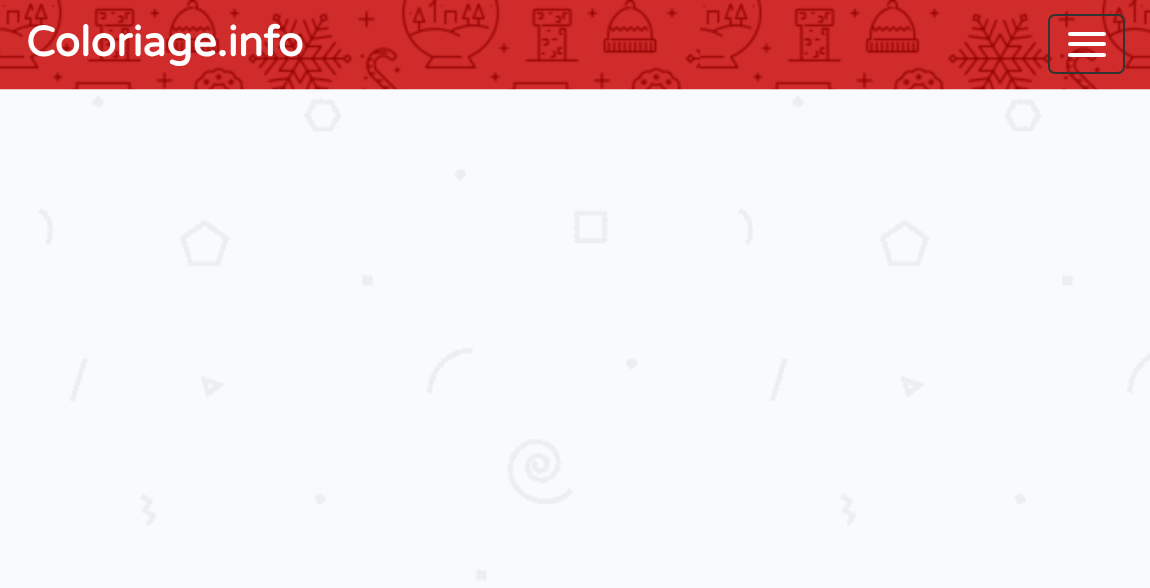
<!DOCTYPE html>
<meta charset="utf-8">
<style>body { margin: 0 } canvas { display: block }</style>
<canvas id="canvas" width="1150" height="588"></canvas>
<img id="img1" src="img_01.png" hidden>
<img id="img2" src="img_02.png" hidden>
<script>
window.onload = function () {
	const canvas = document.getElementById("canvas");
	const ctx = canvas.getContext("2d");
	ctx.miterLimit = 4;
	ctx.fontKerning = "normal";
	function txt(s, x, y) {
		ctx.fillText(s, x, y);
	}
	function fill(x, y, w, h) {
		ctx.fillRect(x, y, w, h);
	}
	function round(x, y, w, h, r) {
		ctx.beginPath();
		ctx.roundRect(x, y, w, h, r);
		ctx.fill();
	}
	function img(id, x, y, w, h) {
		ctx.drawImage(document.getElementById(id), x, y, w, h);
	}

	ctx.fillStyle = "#FFFFFF";
	fill(0, 0, 1150, 588);
	img("img1", 0, 89, 1150, 499);
	img("img2", 0, 0, 1150, 90);
	ctx.beginPath();
	ctx.roundRect(1049, 15, 75, 58, 6);
	ctx.strokeStyle = "#333333";
	ctx.lineWidth = 2;
	ctx.stroke();
	round(1068, 32, 38, 4, 2);
	round(1068, 42, 38, 4, 2);
	round(1068, 53, 38, 4, 2);
	ctx.font = "bold 42px Varela Round";
	txt("Coloriage.info", 26, 56);
};
</script>
